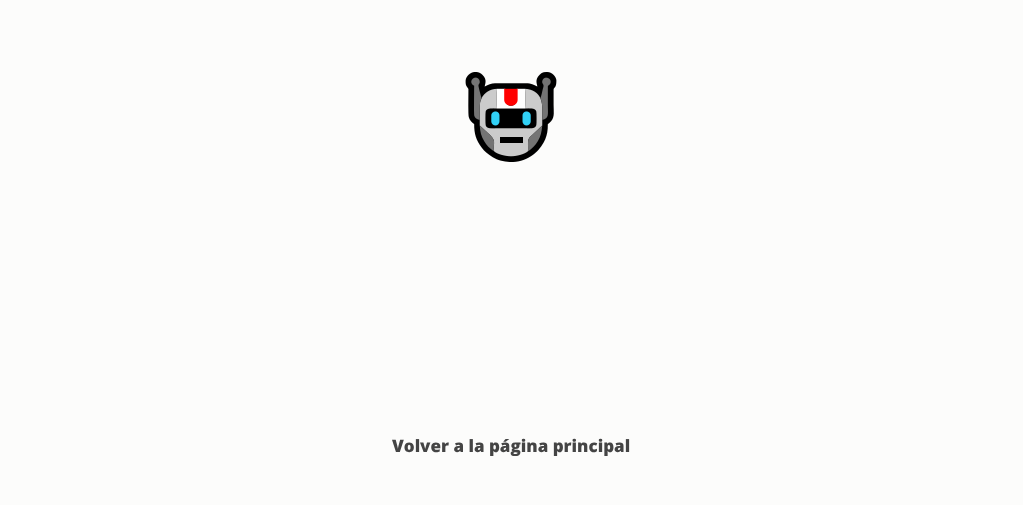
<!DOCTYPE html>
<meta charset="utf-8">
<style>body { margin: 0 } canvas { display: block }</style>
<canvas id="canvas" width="1023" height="505"></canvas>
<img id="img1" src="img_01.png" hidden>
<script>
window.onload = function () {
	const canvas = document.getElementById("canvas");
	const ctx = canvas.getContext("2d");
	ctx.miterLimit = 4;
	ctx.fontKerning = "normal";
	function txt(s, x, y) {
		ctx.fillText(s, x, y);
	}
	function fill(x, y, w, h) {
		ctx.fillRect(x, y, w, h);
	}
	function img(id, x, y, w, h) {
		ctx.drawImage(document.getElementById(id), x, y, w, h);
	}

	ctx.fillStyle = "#FCFCFB";
	fill(0, 0, 1023, 505);
	img("img1", 465, 72, 92, 90);
	ctx.font = "800 17px Open Sans";
	ctx.fillStyle = "#444444";
	txt("Volver a la página principal", 392, 452);
};
</script>
